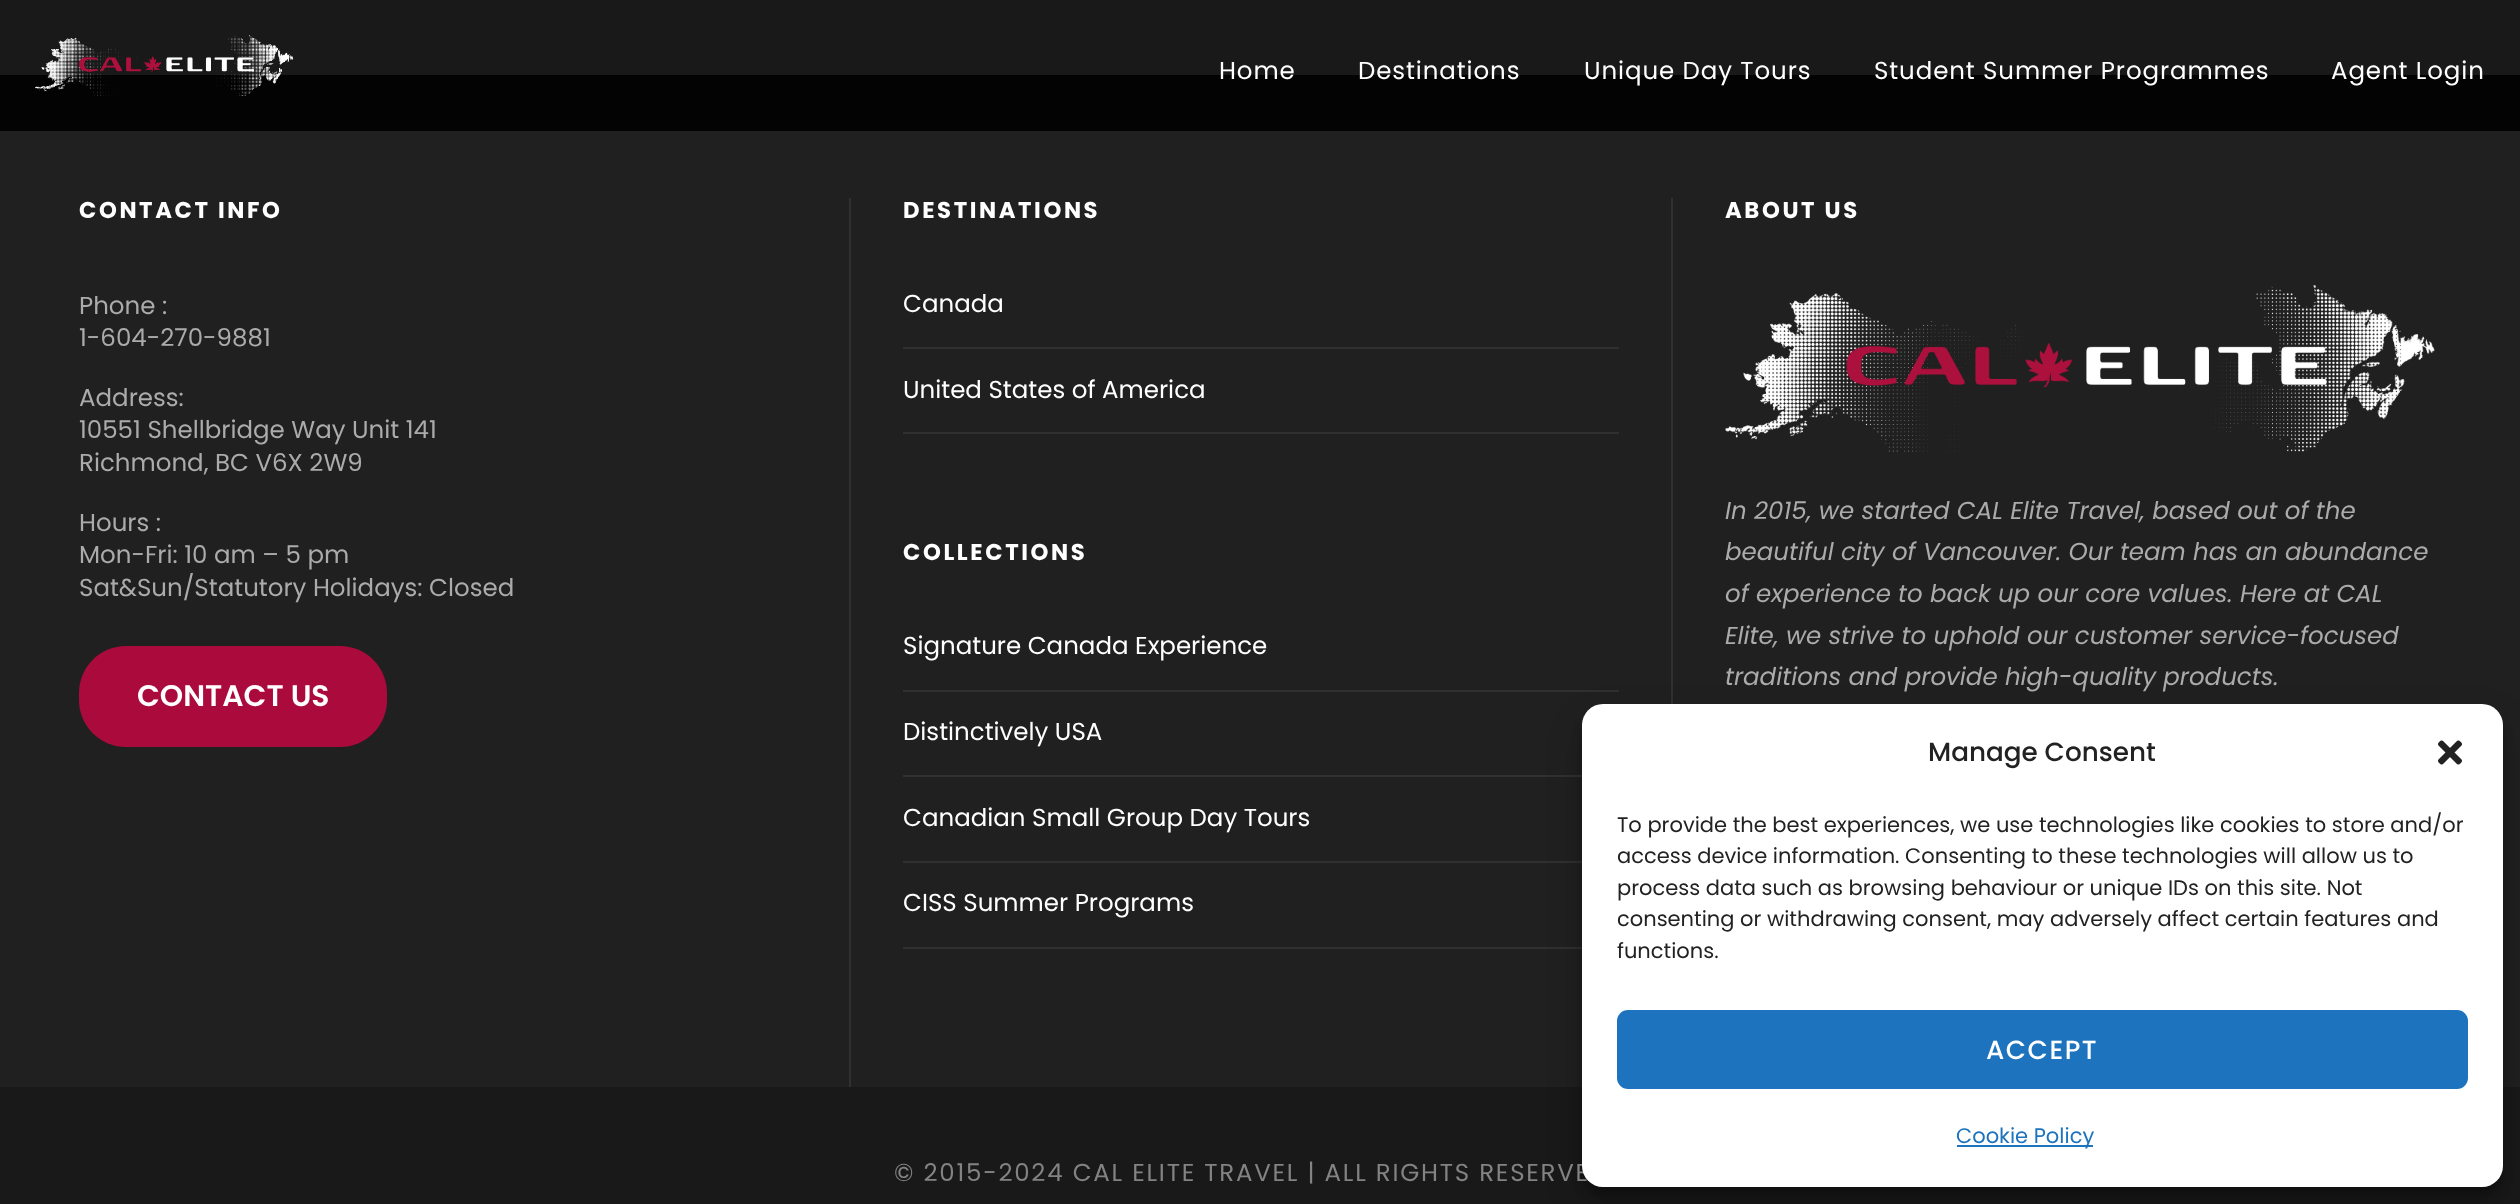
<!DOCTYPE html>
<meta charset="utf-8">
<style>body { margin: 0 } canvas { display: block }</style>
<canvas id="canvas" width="2520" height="1204"></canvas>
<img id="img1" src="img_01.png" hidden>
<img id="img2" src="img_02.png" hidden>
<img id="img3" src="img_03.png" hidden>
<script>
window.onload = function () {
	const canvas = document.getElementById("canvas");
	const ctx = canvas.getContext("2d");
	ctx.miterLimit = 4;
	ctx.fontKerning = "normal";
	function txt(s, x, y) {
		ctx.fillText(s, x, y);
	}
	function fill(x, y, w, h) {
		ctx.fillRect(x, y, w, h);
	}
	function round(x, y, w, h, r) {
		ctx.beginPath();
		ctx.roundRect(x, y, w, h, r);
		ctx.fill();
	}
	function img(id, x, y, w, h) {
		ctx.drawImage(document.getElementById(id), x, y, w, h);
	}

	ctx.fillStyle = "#191919";
	fill(0, 0, 2520, 1204);
	ctx.fillStyle = "#030303";
	fill(0, 75, 2520, 56);
	img("img1", 35, 35, 259, 61);
	ctx.fillStyle = "#202020";
	fill(0, 131, 2520, 956);
	ctx.fillStyle = "#AB0A3D";
	round(79, 646, 308, 101, 47);
	ctx.fillStyle = "#303030";
	fill(849, 198, 2, 889);
	fill(903, 347, 716, 2);
	fill(903, 432, 716, 2);
	fill(903, 690, 716, 2);
	fill(903, 775, 679, 2);
	fill(903, 861, 679, 2);
	fill(903, 947, 679, 2);
	fill(1671, 198, 2, 506);
	img("img2", 1725, 285, 710, 167);
	ctx.fillStyle = "rgba(0, 0, 0, 0.23)";
	ctx.filter = "blur(5px)";
	ctx.beginPath();
	ctx.roundRect(1582, 714, 921, 483, 21);
	ctx.fill();
	ctx.filter = "none";
	ctx.fillStyle = "rgba(0, 0, 0, 0.19)";
	ctx.filter = "blur(17.5px)";
	ctx.beginPath();
	ctx.roundRect(1582, 721, 921, 483, 21);
	ctx.fill();
	ctx.filter = "none";
	ctx.letterSpacing = "0.9px";
	ctx.font = "24.5px Poppins";
	ctx.fillStyle = "#FFFFFF";
	txt("Home", 1219, 79);
	txt("Destinations", 1358, 79);
	txt("Unique Day Tours", 1584, 79);
	txt("Student Summer Programmes", 1874, 79);
	txt("Agent Login", 2331, 79);
	ctx.letterSpacing = "2.6px";
	ctx.font = "bold 22.75px Poppins";
	txt("CONTACT INFO", 79, 218);
	ctx.letterSpacing = "0px";
	ctx.font = "24.5px Poppins";
	ctx.fillStyle = "#ABABAB";
	txt("Phone :", 79, 314);
	txt("1-604-270-9881", 79, 346);
	txt("Address:", 79, 406);
	txt("10551 Shellbridge Way Unit 141", 79, 438);
	txt("Richmond, BC V6X 2W9", 79, 471);
	txt("Hours :", 79, 531);
	txt("Mon-Fri: 10 am – 5 pm", 79, 563);
	txt("Sat&Sun/Statutory Holidays: Closed", 79, 596);
	ctx.font = "600 29.75px Poppins";
	ctx.fillStyle = "#FFFFFF";
	txt("CONTACT US", 137, 706);
	ctx.letterSpacing = "2.6px";
	ctx.font = "bold 22.75px Poppins";
	txt("DESTINATIONS", 903, 218);
	ctx.letterSpacing = "0px";
	ctx.font = "24.5px Poppins";
	txt("Canada", 903, 312);
	txt("United States of America", 903, 398);
	ctx.letterSpacing = "2.6px";
	ctx.font = "bold 22.75px Poppins";
	txt("COLLECTIONS", 903, 560);
	ctx.letterSpacing = "0px";
	ctx.font = "24.5px Poppins";
	txt("Signature Canada Experience", 903, 654);
	txt("Distinctively USA", 903, 740);
	txt("Canadian Small Group Day Tours", 903, 826);
	txt("CISS Summer Programs", 903, 911);
	ctx.letterSpacing = "2.6px";
	ctx.font = "bold 22.75px Poppins";
	txt("ABOUT US", 1725, 218);
	ctx.letterSpacing = "0px";
	ctx.font = "italic 24.5px Poppins";
	ctx.fillStyle = "#ABABAB";
	txt("In 2015, we started CAL Elite Travel, based out of the", 1725, 519);
	txt("beautiful city of Vancouver. Our team has an abundance", 1725, 560);
	txt("of experience to back up our core values. Here at CAL", 1725, 602);
	txt("Elite, we strive to uphold our customer service-focused", 1725, 644);
	txt("traditions and provide high-quality products.", 1725, 685);
	ctx.letterSpacing = "1.75px";
	ctx.font = "24.5px Poppins";
	ctx.fillStyle = "#838383";
	txt("© 2015-2024 CAL ELITE TRAVEL | ALL RIGHTS RESERVE", 894, 1181);
	ctx.fillStyle = "#FFFFFF";
	round(1582, 704, 921, 483, 21);
	ctx.letterSpacing = "0px";
	ctx.font = "500 26.25px Poppins";
	ctx.fillStyle = "#222222";
	txt("Manage Consent", 1928, 761);
	img("img3", 2438, 740, 24, 25);
	ctx.font = "21px Poppins";
	txt("To provide the best experiences, we use technologies like cookies to store and/or", 1617, 832);
	txt("access device information. Consenting to these technologies will allow us to", 1617, 863);
	txt("process data such as browsing behaviour or unique IDs on this site. Not", 1617, 895);
	txt("consenting or withdrawing consent, may adversely affect certain features and", 1617, 926);
	txt("functions.", 1617, 958);
	ctx.fillStyle = "#1E73BE";
	ctx.beginPath();
	ctx.roundRect(1618, 1011, 849, 77, 10);
	ctx.fill();
	ctx.strokeStyle = "#1E73BE";
	ctx.lineWidth = 2;
	ctx.stroke();
	ctx.letterSpacing = "1.5px";
	ctx.font = "500 26.25px Poppins";
	ctx.fillStyle = "#FFFFFF";
	txt("ACCEPT", 1986, 1059);
	ctx.fillStyle = "#1E73BE";
	fill(1957, 1145, 136, 2);
	ctx.letterSpacing = "0px";
	ctx.font = "21px Poppins";
	txt("Cookie Policy", 1956, 1143);
};
</script>
